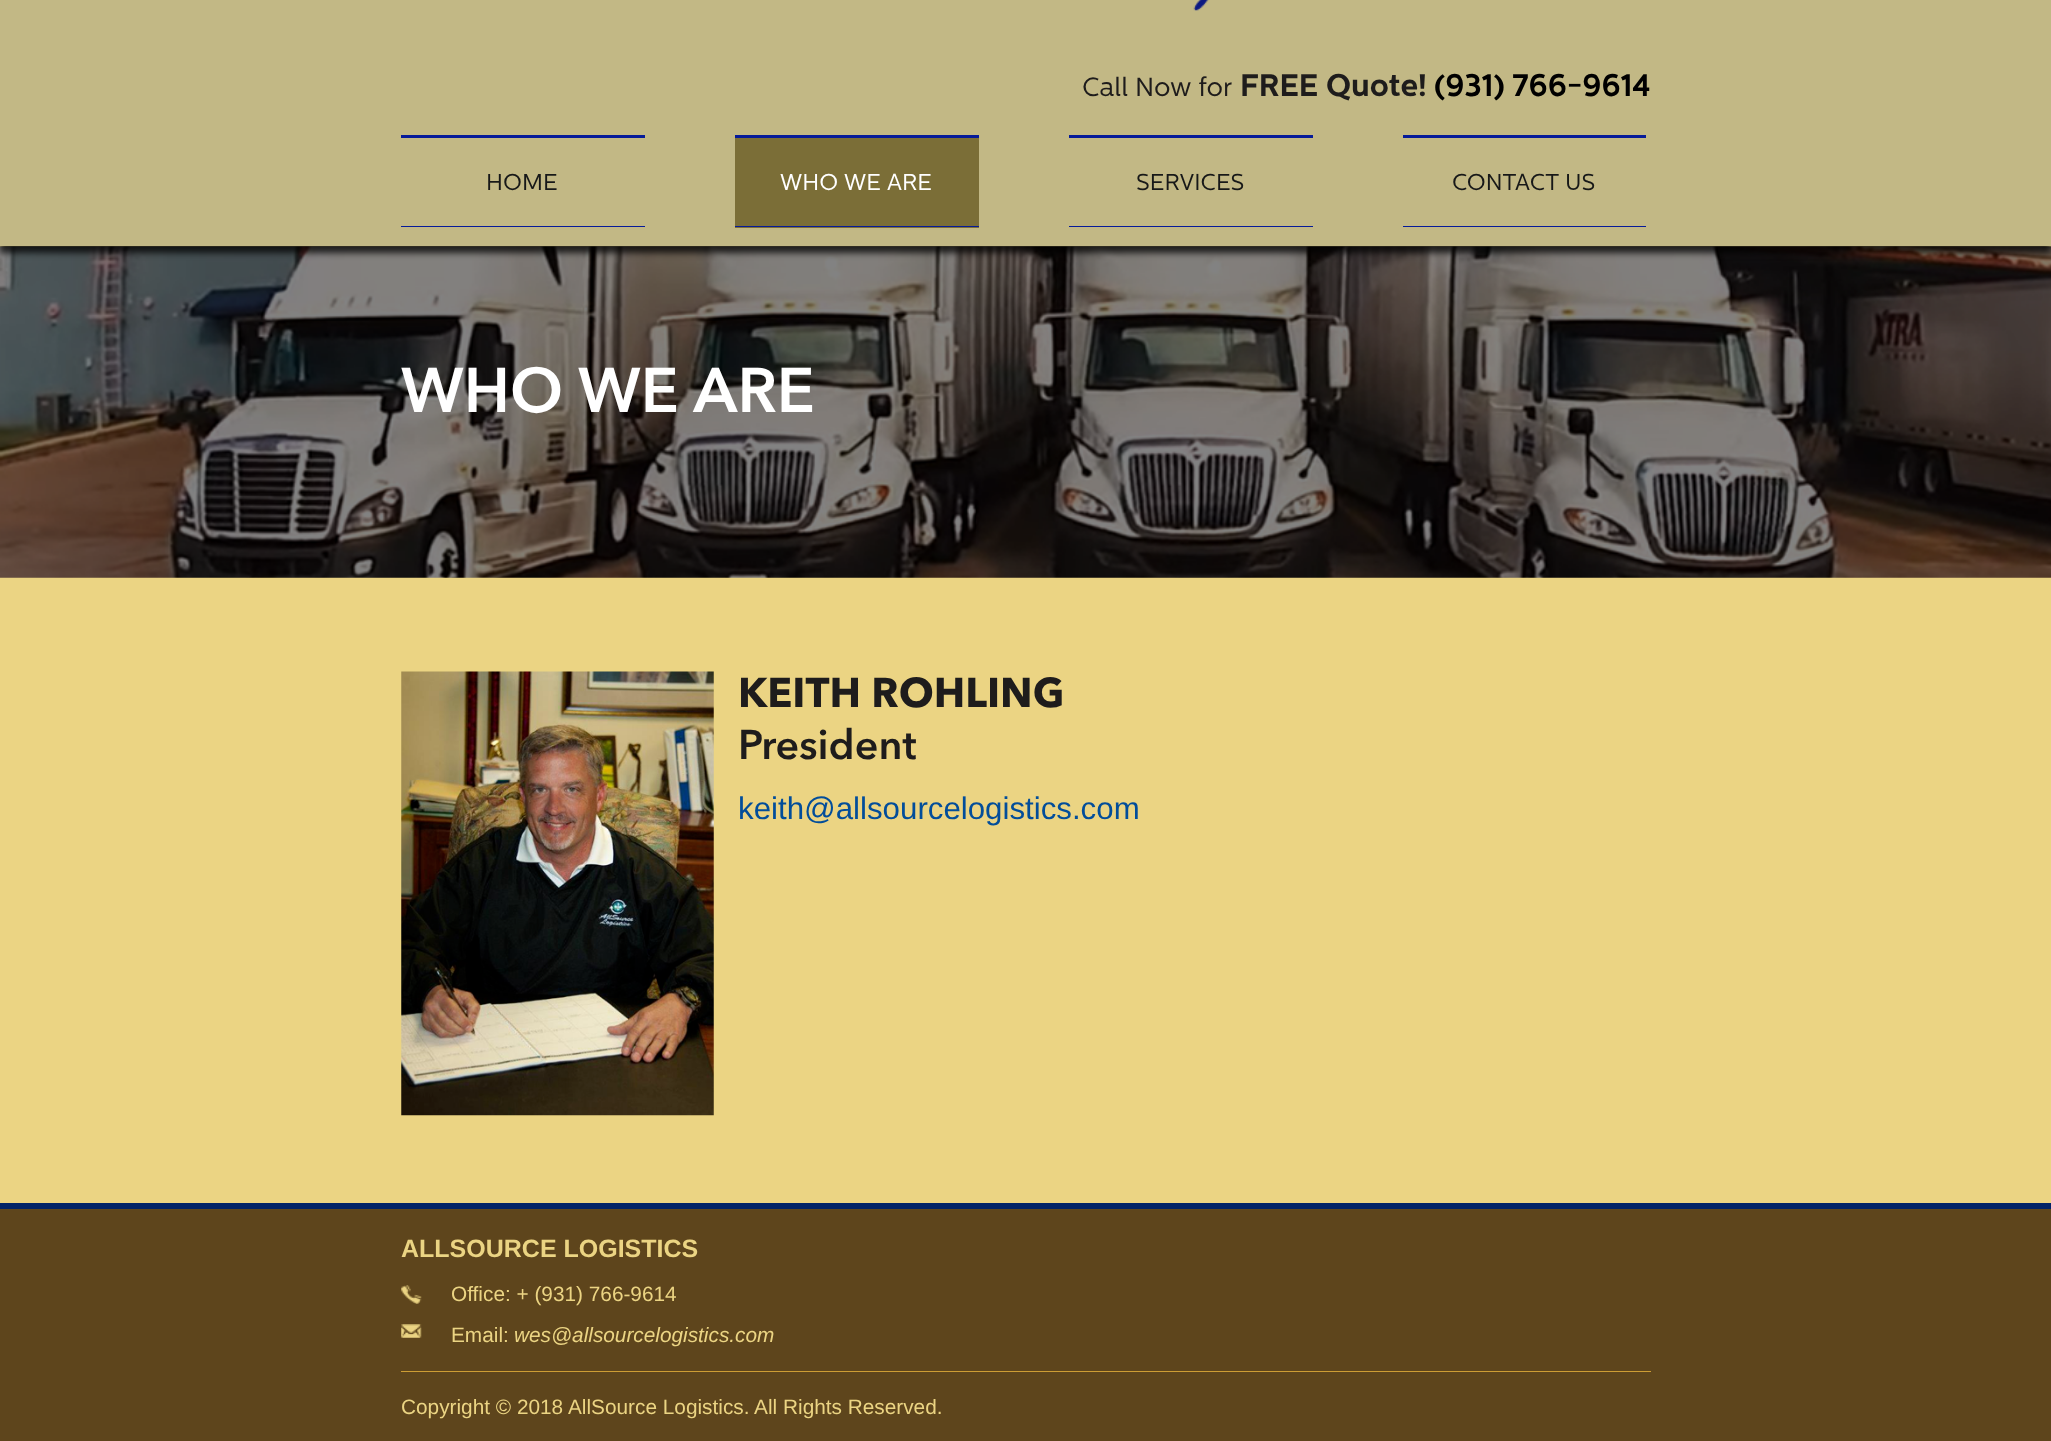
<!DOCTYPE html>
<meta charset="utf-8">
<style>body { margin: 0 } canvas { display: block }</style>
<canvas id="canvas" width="2051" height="1441"></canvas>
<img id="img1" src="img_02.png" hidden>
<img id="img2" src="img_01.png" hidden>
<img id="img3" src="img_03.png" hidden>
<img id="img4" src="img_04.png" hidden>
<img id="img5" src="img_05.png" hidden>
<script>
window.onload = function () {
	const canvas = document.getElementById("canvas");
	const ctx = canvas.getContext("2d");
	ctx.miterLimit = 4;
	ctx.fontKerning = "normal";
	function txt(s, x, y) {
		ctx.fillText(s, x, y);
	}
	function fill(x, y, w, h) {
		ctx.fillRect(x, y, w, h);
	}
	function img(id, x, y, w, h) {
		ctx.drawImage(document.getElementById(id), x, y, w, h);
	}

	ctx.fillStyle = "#EBD483";
	fill(0, 0, 2051, 1441);
	img("img1", 0, 246, 2051, 332);
	ctx.fillStyle = "rgba(0, 0, 0, 0.75)";
	ctx.filter = "blur(3px)";
	ctx.beginPath();
	ctx.rect(0, -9, 2051, 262);
	ctx.fill();
	ctx.filter = "none";
	ctx.fillStyle = "#C2B885";
	fill(0, 0, 2051, 246);
	img("img2", 1193, 0, 16, 11);
	ctx.fillStyle = "#051A99";
	fill(401, 135, 244, 3);
	fill(401, 226, 244, 1);
	ctx.fillStyle = "#7B6E37";
	fill(735, 138, 244, 90);
	ctx.fillStyle = "#051A99";
	fill(735, 135, 244, 3);
	fill(735, 226, 244, 1);
	fill(1069, 135, 244, 3);
	fill(1069, 226, 244, 1);
	fill(1403, 135, 243, 3);
	fill(1403, 226, 243, 1);
	img("img3", 401, 671, 313, 445);
	ctx.fillStyle = "#5E451C";
	fill(0, 1209, 2051, 232);
	ctx.fillStyle = "#012367";
	fill(0, 1203, 2051, 6);
	img("img4", 401, 1285, 21, 19);
	img("img5", 401, 1324, 21, 14);
	ctx.fillStyle = "#CD9D34";
	fill(401, 1371, 1250, 1);
	ctx.font = "26.25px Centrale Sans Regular";
	ctx.fillStyle = "#1E1C1C";
	txt("Call Now for", 1082, 96);
	ctx.font = "bold 31.25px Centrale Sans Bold";
	txt("FREE Quote!", 1240, 96);
	ctx.fillStyle = "#000000";
	txt("(931) 766-9614", 1434, 96);
	ctx.font = "23px Centrale Sans Regular";
	ctx.fillStyle = "#171818";
	txt("HOME", 486, 190);
	ctx.fillStyle = "#FFFFFF";
	txt("WHO WE ARE", 780, 190);
	ctx.fillStyle = "#171818";
	txt("SERVICES", 1136, 190);
	txt("CONTACT US", 1452, 190);
	ctx.font = "600 62.5px Avenir Next";
	ctx.fillStyle = "#FFFFFF";
	txt("WHO WE ARE", 401, 412);
	ctx.font = "bold 41.25px Avenir Next";
	ctx.fillStyle = "#1E1C1C";
	txt("KEITH ROHLING", 738, 707);
	ctx.font = "600 41.25px Avenir Next";
	txt("President", 738, 759);
	ctx.font = "31.25px Liberation Sans";
	ctx.fillStyle = "#024D9A";
	txt("keith@allsourcelogistics.com", 738, 819);
	ctx.font = "bold 25px Liberation Sans";
	ctx.fillStyle = "#EBD483";
	txt("ALLSOURCE LOGISTICS", 401, 1257);
	ctx.font = "20.8px Liberation Sans";
	txt("Office: + (931) 766-9614", 451, 1301);
	txt("Email:", 451, 1342);
	ctx.font = "italic 20.8px Liberation Sans";
	txt("wes@allsourcelogistics.com", 514, 1342);
	ctx.font = "20.8px Liberation Sans";
	txt("Copyright © 2018", 401, 1414);
	txt("AllSource Logistics. All Rights Reserved.", 568, 1414);
};
</script>
